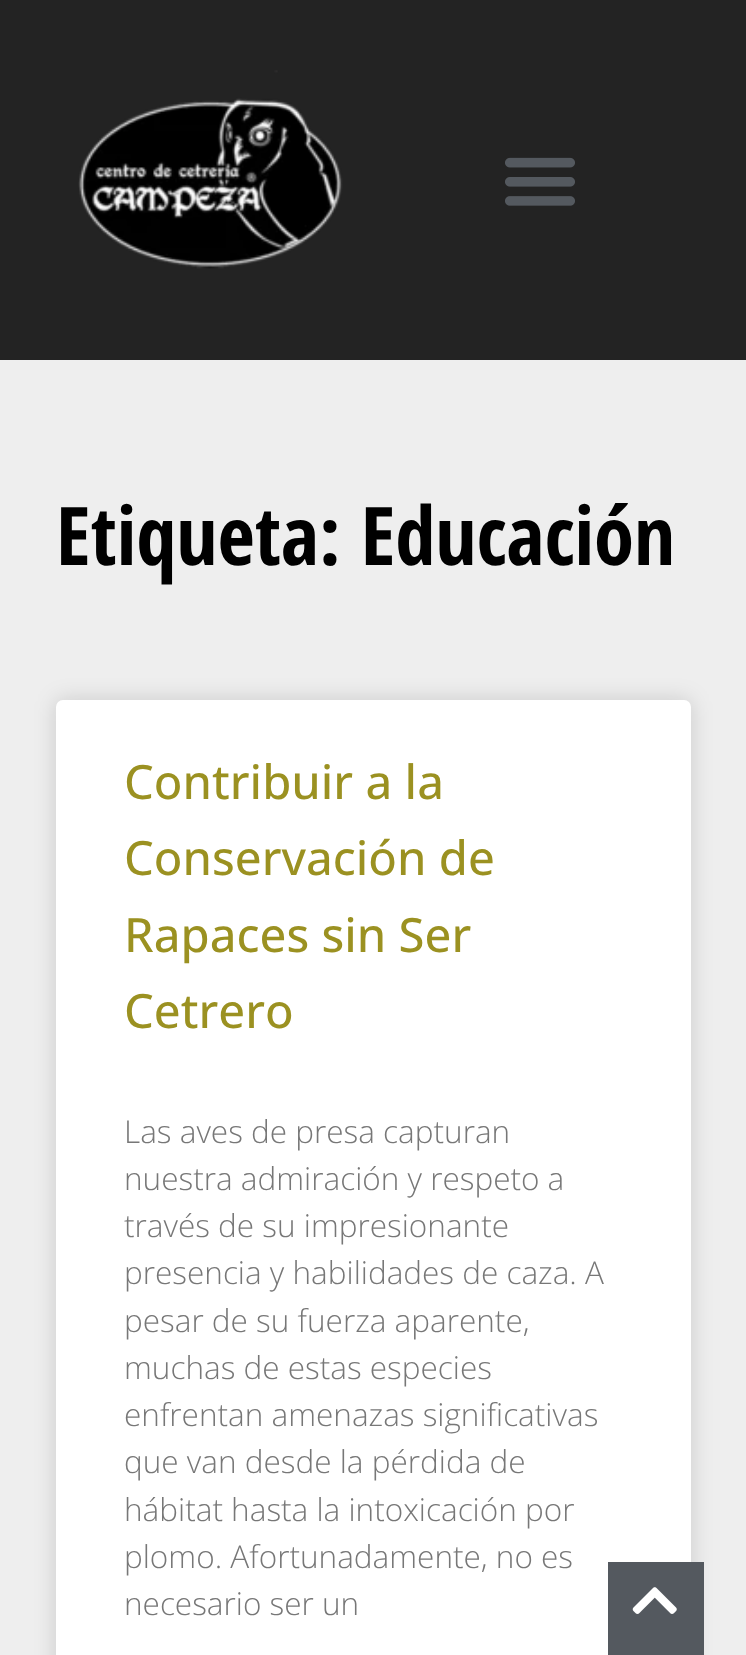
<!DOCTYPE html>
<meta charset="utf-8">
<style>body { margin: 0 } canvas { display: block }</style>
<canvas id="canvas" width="746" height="1655"></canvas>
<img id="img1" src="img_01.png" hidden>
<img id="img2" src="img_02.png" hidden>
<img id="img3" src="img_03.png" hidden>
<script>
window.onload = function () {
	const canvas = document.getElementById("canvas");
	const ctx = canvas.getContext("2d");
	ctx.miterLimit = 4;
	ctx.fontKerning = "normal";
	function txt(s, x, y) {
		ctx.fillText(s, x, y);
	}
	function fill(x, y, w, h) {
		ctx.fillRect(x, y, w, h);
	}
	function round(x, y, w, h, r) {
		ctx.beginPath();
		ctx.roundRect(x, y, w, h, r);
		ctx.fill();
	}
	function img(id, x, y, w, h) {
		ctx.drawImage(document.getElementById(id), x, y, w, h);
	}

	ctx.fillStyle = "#232323";
	fill(0, 0, 746, 1655);
	img("img1", 78, 70, 265, 199);
	img("img2", 505, 157, 70, 49);
	ctx.fillStyle = "#EEEEEE";
	fill(0, 360, 746, 1295);
	ctx.fillStyle = "rgba(0, 0, 0, 0.15)";
	ctx.filter = "blur(11px)";
	ctx.beginPath();
	ctx.roundRect(56, 700, 635, 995, 7);
	ctx.fill();
	ctx.filter = "none";
	ctx.fillStyle = "#FFFFFF";
	round(56, 700, 635, 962, 7);
	ctx.fillStyle = "#54595F";
	fill(608, 1562, 96, 93);
	img("img3", 632, 1587, 45, 27);
	ctx.font = "bold 81px Open Sans Condensed";
	ctx.fillStyle = "#000000";
	txt("Etiqueta: Educación", 56, 565);
	ctx.font = "500 47.25px Open Sans";
	ctx.fillStyle = "#9B9121";
	txt("Contribuir a la", 124, 799);
	txt("Conservación de", 124, 875);
	txt("Rapaces sin Ser", 124, 952);
	txt("Cetrero", 124, 1028);
	ctx.font = "300 31.5px Open Sans";
	ctx.fillStyle = "#777777";
	txt("Las aves de presa capturan", 124, 1143);
	txt("nuestra admiración y respeto a", 124, 1190);
	txt("través de su impresionante", 124, 1237);
	txt("presencia y habilidades de caza. A", 124, 1284);
	txt("pesar de su fuerza aparente,", 124, 1332);
	txt("muchas de estas especies", 124, 1379);
	txt("enfrentan amenazas significativas", 124, 1426);
	txt("que van desde la pérdida de", 124, 1473);
	txt("hábitat hasta la intoxicación por", 124, 1521);
	txt("plomo. Afortunadamente, no es", 124, 1568);
	txt("necesario ser un", 124, 1615);
};
</script>
